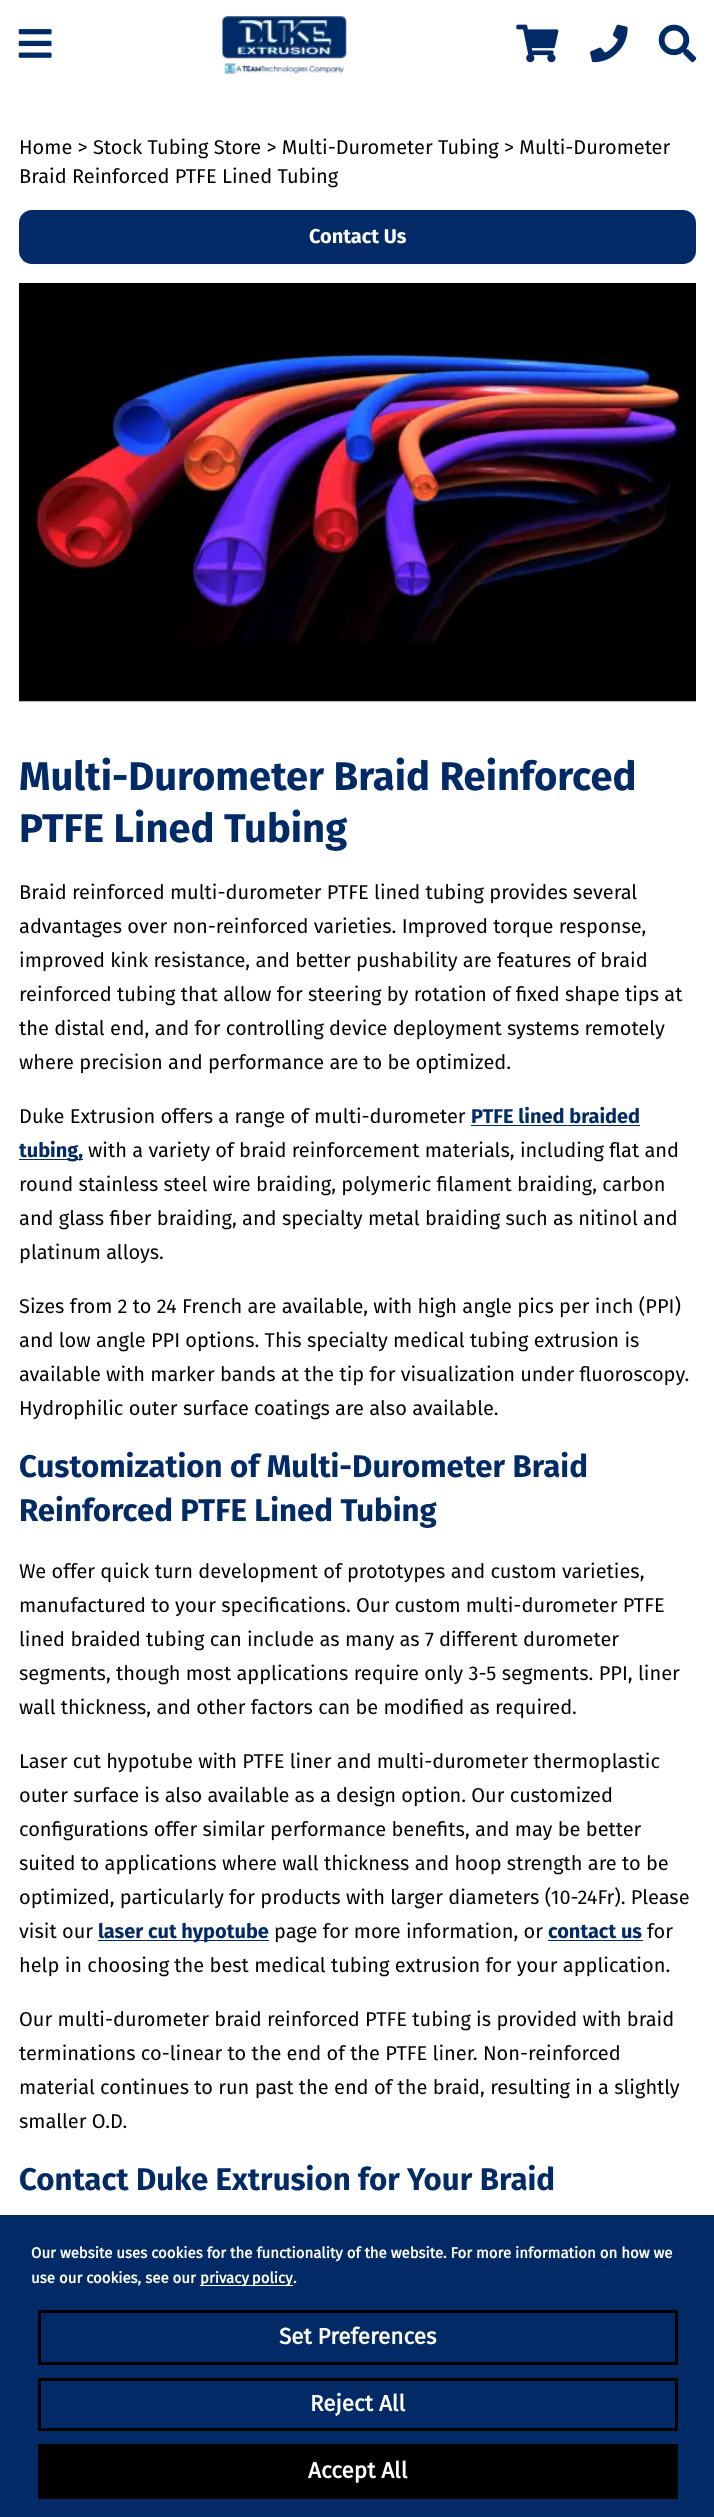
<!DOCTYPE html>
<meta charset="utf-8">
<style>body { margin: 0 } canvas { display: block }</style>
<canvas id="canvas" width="714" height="2517"></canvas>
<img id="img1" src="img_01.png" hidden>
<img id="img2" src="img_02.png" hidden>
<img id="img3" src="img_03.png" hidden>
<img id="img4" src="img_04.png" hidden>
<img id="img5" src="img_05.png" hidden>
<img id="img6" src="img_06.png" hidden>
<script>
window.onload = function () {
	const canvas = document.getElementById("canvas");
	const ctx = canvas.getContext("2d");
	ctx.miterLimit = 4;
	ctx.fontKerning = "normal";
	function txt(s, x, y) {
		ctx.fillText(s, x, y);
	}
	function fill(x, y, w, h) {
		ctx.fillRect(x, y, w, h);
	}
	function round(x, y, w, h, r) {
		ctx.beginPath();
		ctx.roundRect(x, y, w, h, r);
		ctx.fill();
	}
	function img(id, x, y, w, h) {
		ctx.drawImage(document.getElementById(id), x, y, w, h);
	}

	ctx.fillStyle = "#FFFFFF";
	fill(0, 0, 714, 2517);
	img("img1", 18, 29, 34, 29);
	img("img2", 222, 16, 125, 58);
	img("img3", 516, 24, 43, 39);
	img("img4", 590, 24, 38, 39);
	img("img5", 658, 24, 39, 39);
	ctx.fillStyle = "#012A66";
	round(19, 210, 677, 54, 13);
	img("img6", 19, 283, 677, 419);
	fill(471, 1125, 169, 1);
	fill(19, 1159, 64, 1);
	fill(98, 1940, 171, 1);
	fill(548, 1940, 95, 1);
	fill(0, 2215, 714, 302);
	ctx.fillStyle = "#FFFFFF";
	fill(200, 2285, 93, 1);
	ctx.strokeStyle = "#000000";
	ctx.lineWidth = 3;
	ctx.strokeRect(39.5, 2311.5, 637, 52);
	ctx.strokeRect(39.5, 2379.5, 637, 50);
	ctx.fillStyle = "#000000";
	fill(38, 2444, 640, 55);
	ctx.font = "20px Fira Sans";
	txt("Home > Stock Tubing Store > Multi-Durometer Tubing > Multi-Durometer", 19, 154);
	txt("Braid Reinforced PTFE Lined Tubing", 19, 183);
	ctx.font = "bold 20px Fira Sans";
	ctx.fillStyle = "#FFFFFF";
	txt("Contact Us", 309, 243);
	ctx.font = "bold 40px Fira Sans";
	ctx.fillStyle = "#012A66";
	txt("Multi-Durometer Braid Reinforced", 19, 790);
	txt("PTFE Lined Tubing", 19, 842);
	ctx.font = "20px Fira Sans";
	ctx.fillStyle = "#000000";
	txt("Braid reinforced multi-durometer PTFE lined tubing provides several", 19, 899);
	txt("advantages over non-reinforced varieties. Improved torque response,", 19, 933);
	txt("improved kink resistance, and better pushability are features of braid", 19, 967);
	txt("reinforced tubing that allow for steering by rotation of fixed shape tips at", 19, 1001);
	txt("the distal end, and for controlling device deployment systems remotely", 19, 1035);
	txt("where precision and performance are to be optimized.", 19, 1069);
	txt("Duke Extrusion offers a range of multi-durometer", 19, 1123);
	ctx.font = "bold 20px Fira Sans";
	ctx.fillStyle = "#012A66";
	txt("PTFE lined braided", 471, 1123);
	txt("tubing,", 19, 1157);
	ctx.font = "20px Fira Sans";
	ctx.fillStyle = "#000000";
	txt("with a variety of braid reinforcement materials, including flat and", 88, 1157);
	txt("round stainless steel wire braiding, polymeric filament braiding, carbon", 19, 1191);
	txt("and glass fiber braiding, and specialty metal braiding such as nitinol and", 19, 1225);
	txt("platinum alloys.", 19, 1259);
	txt("Sizes from 2 to 24 French are available, with high angle pics per inch (PPI)", 19, 1313);
	txt("and low angle PPI options. This specialty medical tubing extrusion is", 19, 1347);
	txt("available with marker bands at the tip for visualization under fluoroscopy.", 19, 1381);
	txt("Hydrophilic outer surface coatings are also available.", 19, 1415);
	ctx.font = "bold 31.25px Fira Sans";
	ctx.fillStyle = "#012A66";
	txt("Customization of Multi-Durometer Braid", 19, 1477);
	txt("Reinforced PTFE Lined Tubing", 19, 1521);
	ctx.font = "20px Fira Sans";
	ctx.fillStyle = "#000000";
	txt("We offer quick turn development of prototypes and custom varieties,", 19, 1578);
	txt("manufactured to your specifications. Our custom multi-durometer PTFE", 19, 1612);
	txt("lined braided tubing can include as many as 7 different durometer", 19, 1646);
	txt("segments, though most applications require only 3-5 segments. PPI, liner", 19, 1680);
	txt("wall thickness, and other factors can be modified as required.", 19, 1714);
	txt("Laser cut hypotube with PTFE liner and multi-durometer thermoplastic", 19, 1768);
	txt("outer surface is also available as a design option. Our customized", 19, 1802);
	txt("configurations offer similar performance benefits, and may be better", 19, 1836);
	txt("suited to applications where wall thickness and hoop strength are to be", 19, 1870);
	txt("optimized, particularly for products with larger diameters (10-24Fr). Please", 19, 1904);
	txt("visit our", 19, 1938);
	ctx.font = "bold 20px Fira Sans";
	ctx.fillStyle = "#012A66";
	txt("laser cut hypotube", 98, 1938);
	ctx.font = "20px Fira Sans";
	ctx.fillStyle = "#000000";
	txt("page for more information, or", 274, 1938);
	ctx.font = "bold 20px Fira Sans";
	ctx.fillStyle = "#012A66";
	txt("contact us", 548, 1938);
	ctx.font = "20px Fira Sans";
	ctx.fillStyle = "#000000";
	txt("for", 647, 1938);
	txt("help in choosing the best medical tubing extrusion for your application.", 19, 1972);
	txt("Our multi-durometer braid reinforced PTFE tubing is provided with braid", 19, 2026);
	txt("terminations co-linear to the end of the PTFE liner. Non-reinforced", 19, 2060);
	txt("material continues to run past the end of the braid, resulting in a slightly", 19, 2094);
	txt("smaller O.D.", 19, 2128);
	ctx.font = "bold 31.25px Fira Sans";
	ctx.fillStyle = "#012A66";
	txt("Contact Duke Extrusion for Your Braid", 19, 2190);
	ctx.font = "bold 15px 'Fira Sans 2'";
	ctx.fillStyle = "#FFFFFF";
	txt("Our website uses cookies for the functionality of the website. For more information on how we", 31, 2258);
	txt("use our cookies, see our", 31, 2283);
	ctx.wordSpacing = "-1px";
	txt("privacy policy", 200, 2283);
	ctx.wordSpacing = "0px";
	txt(".", 293, 2283);
	ctx.font = "bold 22.5px 'Fira Sans 2'";
	txt("Set Preferences", 279, 2344);
	txt("Reject All", 310, 2411);
	txt("Accept All", 308, 2478);
};
</script>
